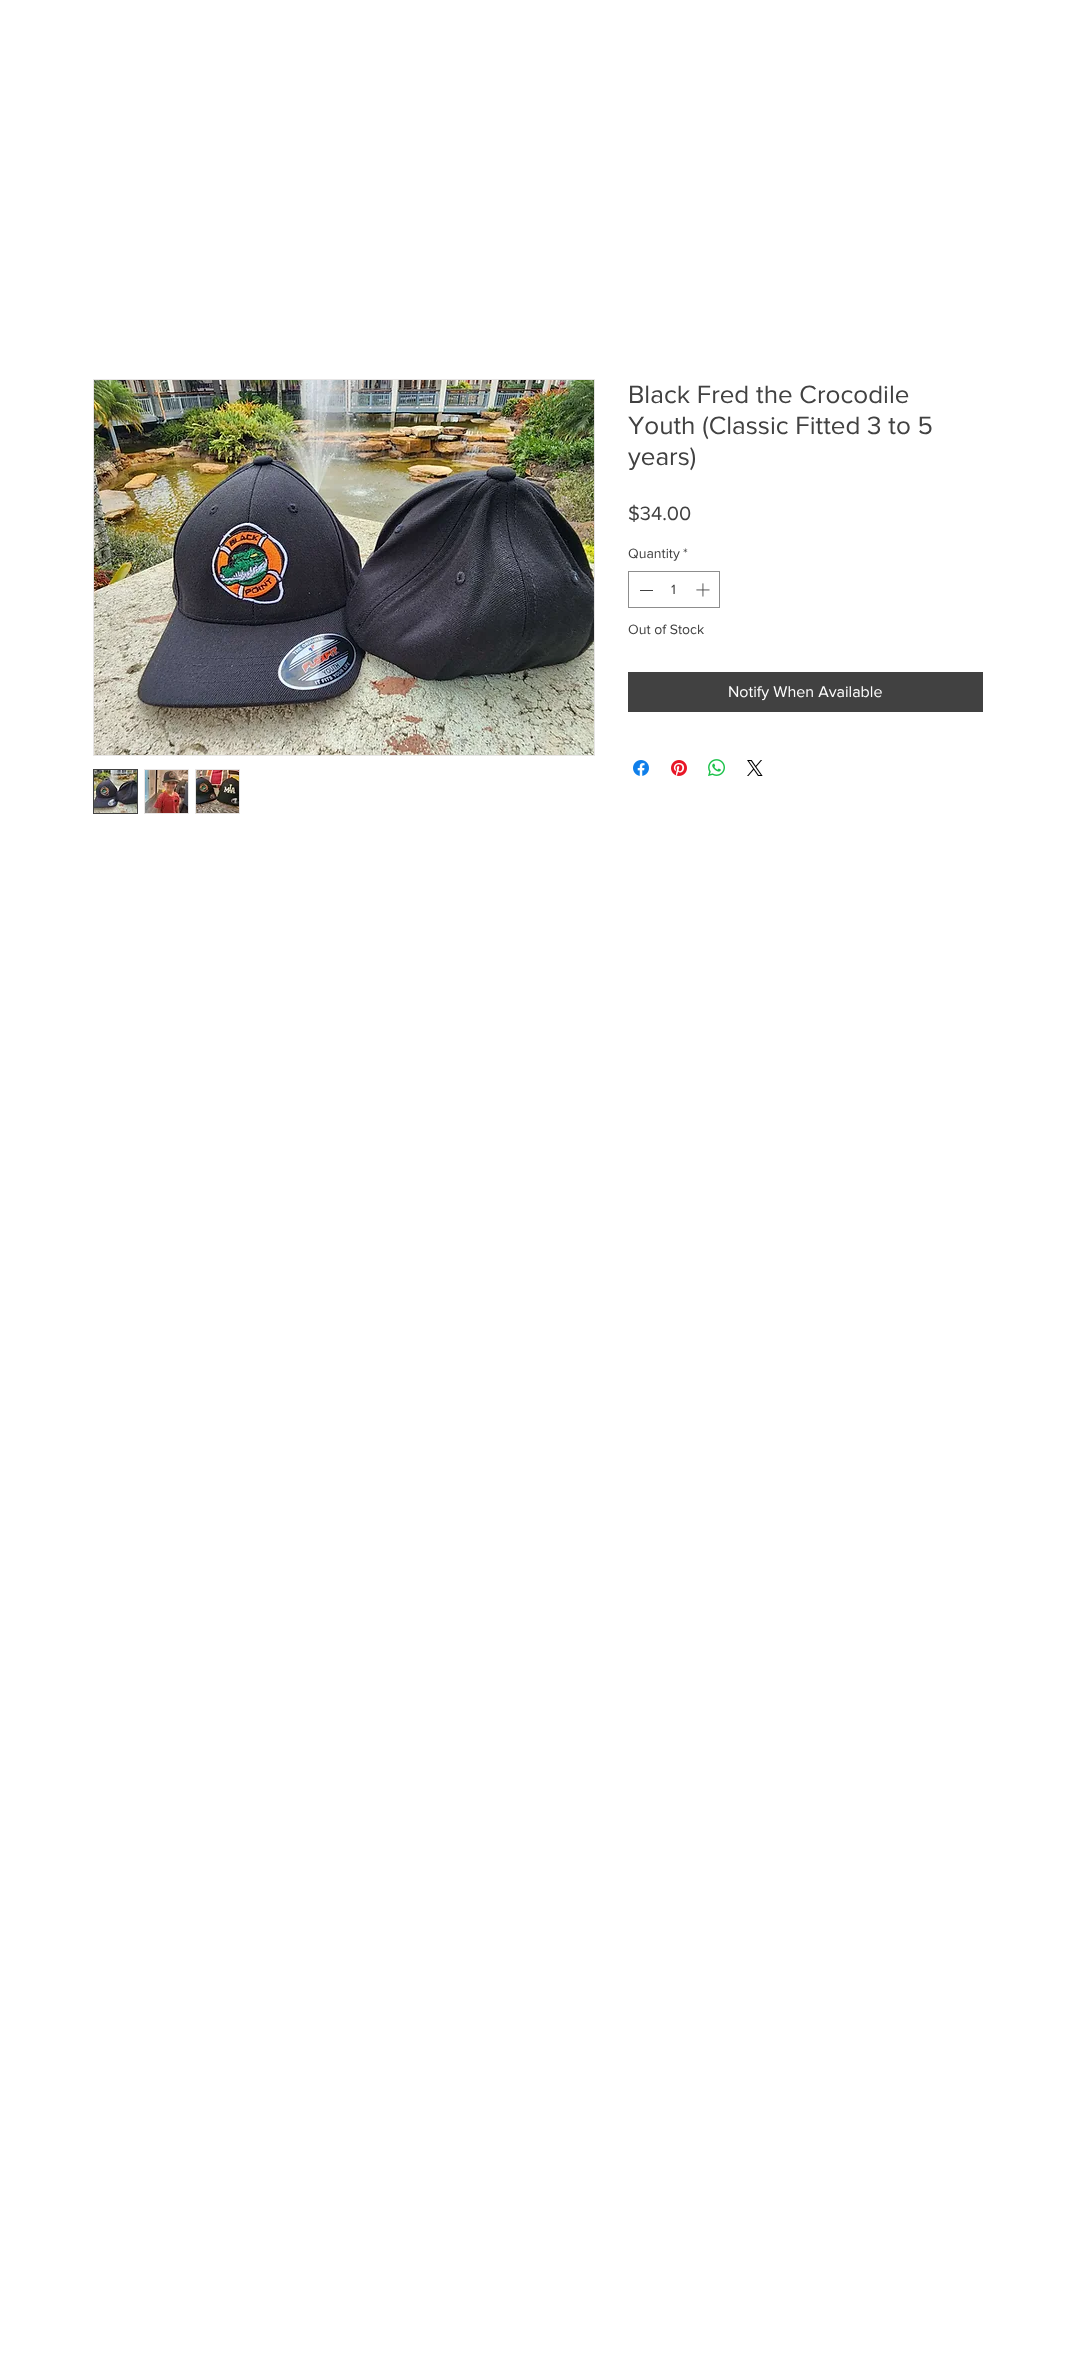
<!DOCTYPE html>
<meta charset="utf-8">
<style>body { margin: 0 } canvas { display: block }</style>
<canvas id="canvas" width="1075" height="2370"></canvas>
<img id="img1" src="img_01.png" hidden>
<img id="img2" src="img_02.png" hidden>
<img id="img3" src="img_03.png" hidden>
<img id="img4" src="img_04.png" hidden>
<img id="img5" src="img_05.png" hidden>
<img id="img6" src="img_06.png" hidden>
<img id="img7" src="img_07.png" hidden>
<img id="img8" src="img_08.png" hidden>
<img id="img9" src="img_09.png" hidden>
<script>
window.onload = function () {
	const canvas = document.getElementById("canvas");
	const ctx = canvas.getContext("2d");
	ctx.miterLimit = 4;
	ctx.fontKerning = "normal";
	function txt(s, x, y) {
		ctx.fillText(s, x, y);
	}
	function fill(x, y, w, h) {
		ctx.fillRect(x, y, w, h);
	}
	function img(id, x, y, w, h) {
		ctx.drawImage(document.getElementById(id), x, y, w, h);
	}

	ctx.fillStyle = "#FFFFFF";
	fill(0, 0, 1075, 2370);
	ctx.strokeStyle = "#E8E6E6";
	ctx.strokeRect(93.5, 379.5, 501, 376);
	img("img1", 94, 380, 500, 375);
	ctx.strokeStyle = "#414141";
	ctx.strokeRect(93.5, 769.5, 44, 44);
	img("img2", 94, 770, 43, 43);
	ctx.strokeStyle = "#E8E6E6";
	ctx.strokeRect(144.5, 769.5, 44, 44);
	img("img3", 145, 770, 43, 43);
	ctx.strokeRect(195.5, 769.5, 44, 44);
	img("img4", 196, 770, 43, 43);
	ctx.strokeStyle = "#8D8D8D";
	ctx.strokeRect(628.5, 571.5, 91, 36);
	ctx.fillStyle = "#414141";
	fill(640, 590, 13, 1);
	img("img5", 696, 583, 14, 14);
	fill(628, 672, 355, 40);
	img("img6", 633, 760, 16, 16);
	img("img7", 671, 760, 16, 16);
	img("img8", 708, 759, 17, 17);
	img("img9", 747, 760, 16, 16);
	ctx.font = "26px 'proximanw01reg'";
	txt("Black Fred the Crocodile", 628, 403);
	txt("Youth (Classic Fitted 3 to 5", 628, 434);
	txt("years)", 628, 465);
	ctx.font = "20px 'proximanw01reg'";
	txt("$34.00", 628, 520);
	ctx.font = "14px 'proximanw01reg'";
	txt("Quantity", 628, 558);
	txt("*", 683, 558);
	txt("1", 671, 594);
	txt("Out of Stock", 628, 634);
	ctx.font = "16px 'proximanw01reg'";
	ctx.fillStyle = "#FFFFFF";
	txt("Notify When Available", 728, 697);
};
</script>
